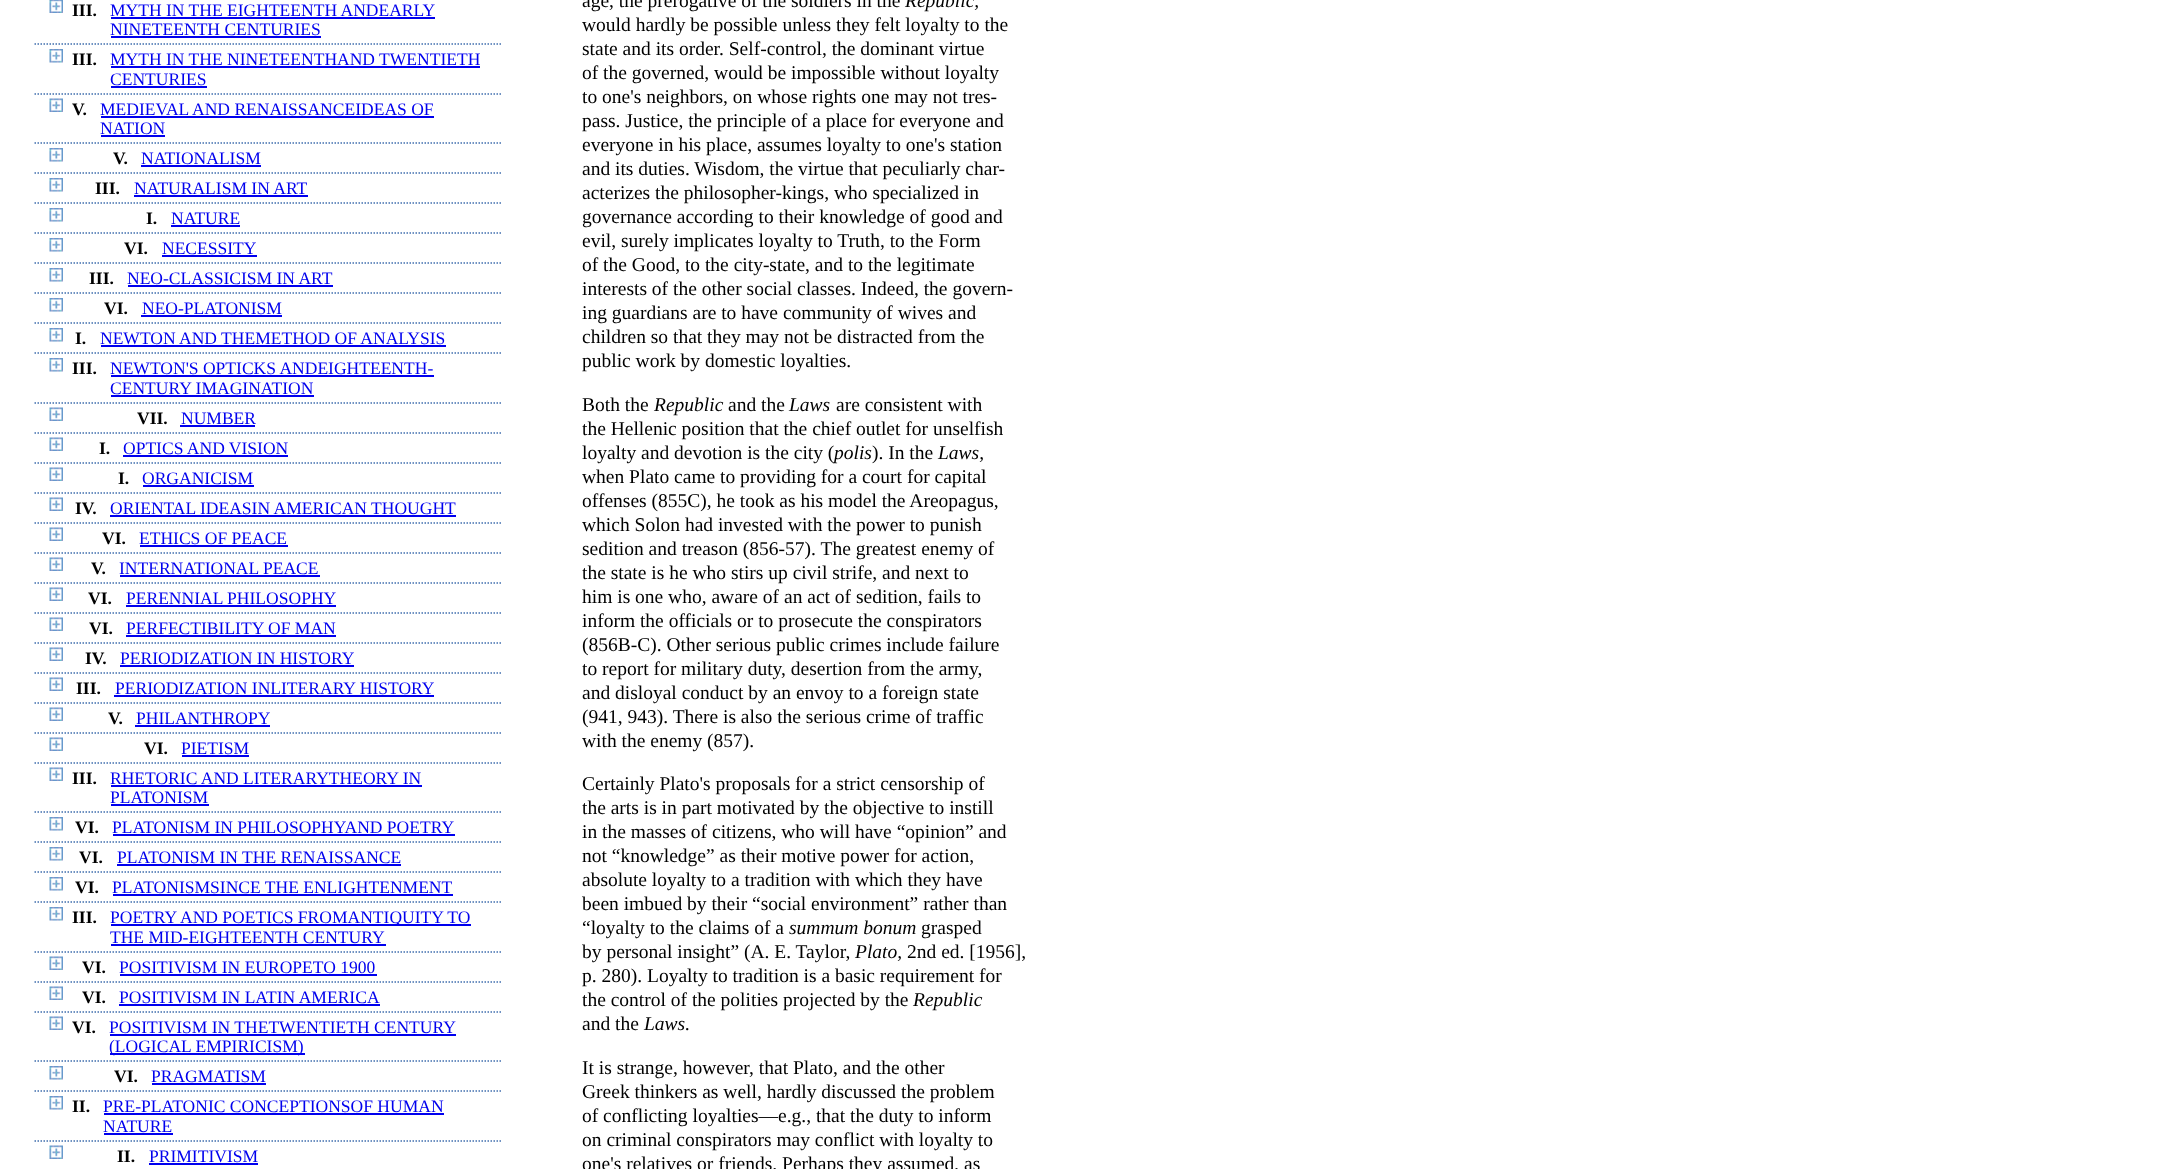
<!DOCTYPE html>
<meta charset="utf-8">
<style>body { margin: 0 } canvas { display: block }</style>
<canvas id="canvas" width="2166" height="1169"></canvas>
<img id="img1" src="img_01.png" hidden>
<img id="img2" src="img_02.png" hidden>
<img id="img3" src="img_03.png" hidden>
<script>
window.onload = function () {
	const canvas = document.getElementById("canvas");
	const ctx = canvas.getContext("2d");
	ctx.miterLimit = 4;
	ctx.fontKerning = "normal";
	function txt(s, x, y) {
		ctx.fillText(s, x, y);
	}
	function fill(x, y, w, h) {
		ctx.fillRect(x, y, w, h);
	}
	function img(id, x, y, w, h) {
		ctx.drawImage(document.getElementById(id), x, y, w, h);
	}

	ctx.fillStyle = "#FFFFFF";
	fill(0, 0, 2166, 1169);
	ctx.beginPath();
	ctx.moveTo(34.5, 44);
	ctx.lineTo(501, 44);
	ctx.strokeStyle = "#3F6DAD";
	ctx.lineWidth = 1.5;
	ctx.setLineDash([1.5, 1.5]);
	ctx.stroke();
	img("img1", 49, 0, 14, 13);
	ctx.fillStyle = "#0000EE";
	fill(111, 17, 324, 2);
	fill(111, 36, 210, 2);
	ctx.beginPath();
	ctx.moveTo(34.5, 94);
	ctx.lineTo(501, 94);
	ctx.stroke();
	img("img2", 49, 49, 14, 14);
	fill(111, 66, 369, 2);
	fill(111, 86, 96, 2);
	ctx.beginPath();
	ctx.moveTo(34.5, 143);
	ctx.lineTo(501, 143);
	ctx.stroke();
	img("img3", 49, 98, 14, 14);
	fill(101, 116, 333, 2);
	fill(101, 135, 64, 2);
	ctx.beginPath();
	ctx.moveTo(34.5, 173);
	ctx.lineTo(501, 173);
	ctx.stroke();
	img("img2", 49, 148, 14, 14);
	fill(141, 165, 120, 2);
	ctx.beginPath();
	ctx.moveTo(34.5, 203);
	ctx.lineTo(501, 203);
	ctx.stroke();
	img("img2", 49, 178, 14, 14);
	fill(134, 195, 174, 2);
	ctx.beginPath();
	ctx.moveTo(34.5, 233);
	ctx.lineTo(501, 233);
	ctx.stroke();
	img("img2", 49, 208, 14, 14);
	fill(171, 225, 69, 2);
	ctx.beginPath();
	ctx.moveTo(34.5, 263);
	ctx.lineTo(501, 263);
	ctx.stroke();
	img("img2", 49, 238, 14, 14);
	fill(162, 255, 95, 2);
	ctx.beginPath();
	ctx.moveTo(34.5, 293);
	ctx.lineTo(501, 293);
	ctx.stroke();
	img("img2", 49, 268, 14, 14);
	fill(128, 285, 205, 2);
	ctx.beginPath();
	ctx.moveTo(34.5, 323);
	ctx.lineTo(501, 323);
	ctx.stroke();
	img("img2", 49, 298, 14, 14);
	fill(141, 315, 141, 2);
	ctx.beginPath();
	ctx.moveTo(34.5, 353);
	ctx.lineTo(501, 353);
	ctx.stroke();
	img("img2", 49, 328, 14, 14);
	fill(101, 345, 345, 2);
	ctx.beginPath();
	ctx.moveTo(34.5, 403);
	ctx.lineTo(501, 403);
	ctx.stroke();
	img("img2", 49, 358, 14, 14);
	fill(111, 375, 323, 2);
	fill(111, 395, 203, 2);
	ctx.beginPath();
	ctx.moveTo(34.5, 433);
	ctx.lineTo(501, 433);
	ctx.stroke();
	img("img3", 49, 407, 14, 14);
	fill(180, 425, 75, 2);
	ctx.beginPath();
	ctx.moveTo(34.5, 463);
	ctx.lineTo(501, 463);
	ctx.stroke();
	img("img3", 49, 437, 14, 14);
	fill(123, 455, 165, 2);
	ctx.beginPath();
	ctx.moveTo(34.5, 493);
	ctx.lineTo(501, 493);
	ctx.stroke();
	img("img3", 49, 467, 14, 14);
	fill(143, 485, 111, 2);
	ctx.beginPath();
	ctx.moveTo(34.5, 523);
	ctx.lineTo(501, 523);
	ctx.stroke();
	img("img3", 49, 497, 14, 14);
	fill(110, 515, 346, 2);
	ctx.beginPath();
	ctx.moveTo(34.5, 553);
	ctx.lineTo(501, 553);
	ctx.stroke();
	img("img3", 49, 527, 14, 14);
	fill(140, 545, 148, 2);
	ctx.beginPath();
	ctx.moveTo(34.5, 583);
	ctx.lineTo(501, 583);
	ctx.stroke();
	img("img3", 49, 557, 14, 14);
	fill(120, 575, 200, 2);
	ctx.beginPath();
	ctx.moveTo(34.5, 613);
	ctx.lineTo(501, 613);
	ctx.stroke();
	img("img3", 49, 587, 14, 14);
	fill(126, 605, 210, 2);
	ctx.beginPath();
	ctx.moveTo(34.5, 643);
	ctx.lineTo(501, 643);
	ctx.stroke();
	img("img3", 49, 617, 14, 14);
	fill(126, 635, 210, 2);
	ctx.beginPath();
	ctx.moveTo(34.5, 673);
	ctx.lineTo(501, 673);
	ctx.stroke();
	img("img3", 49, 647, 14, 14);
	fill(120, 665, 234, 2);
	ctx.beginPath();
	ctx.moveTo(34.5, 703);
	ctx.lineTo(501, 703);
	ctx.stroke();
	img("img3", 49, 677, 14, 14);
	fill(114, 695, 320, 2);
	ctx.beginPath();
	ctx.moveTo(34.5, 733);
	ctx.lineTo(501, 733);
	ctx.stroke();
	img("img3", 49, 707, 14, 14);
	fill(135, 725, 135, 2);
	ctx.beginPath();
	ctx.moveTo(34.5, 763);
	ctx.lineTo(501, 763);
	ctx.stroke();
	img("img3", 49, 737, 14, 14);
	fill(182, 755, 67, 2);
	ctx.beginPath();
	ctx.moveTo(34.5, 812);
	ctx.lineTo(501, 812);
	ctx.stroke();
	img("img3", 49, 767, 14, 14);
	fill(111, 785, 311, 2);
	fill(111, 804, 98, 2);
	ctx.beginPath();
	ctx.moveTo(34.5, 842);
	ctx.lineTo(501, 842);
	ctx.stroke();
	img("img2", 49, 817, 14, 14);
	fill(113, 834, 342, 2);
	ctx.beginPath();
	ctx.moveTo(34.5, 872);
	ctx.lineTo(501, 872);
	ctx.stroke();
	img("img2", 49, 847, 14, 14);
	fill(117, 864, 284, 2);
	ctx.beginPath();
	ctx.moveTo(34.5, 902);
	ctx.lineTo(501, 902);
	ctx.stroke();
	img("img2", 49, 877, 14, 14);
	fill(113, 894, 340, 2);
	ctx.beginPath();
	ctx.moveTo(34.5, 952);
	ctx.lineTo(501, 952);
	ctx.stroke();
	img("img2", 49, 907, 14, 14);
	fill(111, 924, 360, 2);
	fill(111, 944, 275, 2);
	ctx.beginPath();
	ctx.moveTo(34.5, 982);
	ctx.lineTo(501, 982);
	ctx.stroke();
	img("img3", 49, 956, 14, 14);
	fill(120, 974, 257, 2);
	ctx.beginPath();
	ctx.moveTo(34.5, 1012);
	ctx.lineTo(501, 1012);
	ctx.stroke();
	img("img3", 49, 986, 14, 14);
	fill(119, 1004, 261, 2);
	ctx.beginPath();
	ctx.moveTo(34.5, 1061);
	ctx.lineTo(501, 1061);
	ctx.stroke();
	img("img3", 49, 1016, 14, 14);
	fill(110, 1034, 346, 2);
	fill(110, 1053, 195, 2);
	ctx.beginPath();
	ctx.moveTo(34.5, 1091);
	ctx.lineTo(501, 1091);
	ctx.stroke();
	img("img2", 49, 1066, 14, 14);
	fill(152, 1083, 114, 2);
	ctx.beginPath();
	ctx.moveTo(34.5, 1141);
	ctx.lineTo(501, 1141);
	ctx.stroke();
	img("img2", 49, 1096, 14, 14);
	fill(104, 1113, 340, 2);
	fill(104, 1133, 69, 2);
	img("img3", 49, 1145, 14, 14);
	fill(149, 1163, 109, 2);
	ctx.font = "bold 17.55px Liberation Serif";
	ctx.fillStyle = "#000000";
	txt("III.", 72, 16);
	ctx.font = "17.55px Liberation Serif";
	ctx.fillStyle = "#0000EE";
	txt("MYTH IN THE EIGHTEENTH ANDEARLY", 110, 16);
	txt("NINETEENTH CENTURIES", 110, 35);
	ctx.font = "bold 17.55px Liberation Serif";
	ctx.fillStyle = "#000000";
	txt("III.", 72, 65);
	ctx.font = "17.55px Liberation Serif";
	ctx.fillStyle = "#0000EE";
	txt("MYTH IN THE NINETEENTHAND TWENTIETH", 110, 65);
	txt("CENTURIES", 110, 85);
	ctx.font = "bold 17.55px Liberation Serif";
	ctx.fillStyle = "#000000";
	txt("V.", 72, 115);
	ctx.font = "17.55px Liberation Serif";
	ctx.fillStyle = "#0000EE";
	txt("MEDIEVAL AND RENAISSANCEIDEAS OF", 100, 115);
	txt("NATION", 100, 134);
	ctx.font = "bold 17.55px Liberation Serif";
	ctx.fillStyle = "#000000";
	txt("V.", 113, 164);
	ctx.font = "17.55px Liberation Serif";
	ctx.fillStyle = "#0000EE";
	txt("NATIONALISM", 141, 164);
	ctx.font = "bold 17.55px Liberation Serif";
	ctx.fillStyle = "#000000";
	txt("III.", 95, 194);
	ctx.font = "17.55px Liberation Serif";
	ctx.fillStyle = "#0000EE";
	txt("NATURALISM IN ART", 134, 194);
	ctx.font = "bold 17.55px Liberation Serif";
	ctx.fillStyle = "#000000";
	txt("I.", 146, 224);
	ctx.font = "17.55px Liberation Serif";
	ctx.fillStyle = "#0000EE";
	txt("NATURE", 171, 224);
	ctx.font = "bold 17.55px Liberation Serif";
	ctx.fillStyle = "#000000";
	txt("VI.", 124, 254);
	ctx.font = "17.55px Liberation Serif";
	ctx.fillStyle = "#0000EE";
	txt("NECESSITY", 162, 254);
	ctx.font = "bold 17.55px Liberation Serif";
	ctx.fillStyle = "#000000";
	txt("III.", 89, 284);
	ctx.font = "17.55px Liberation Serif";
	ctx.fillStyle = "#0000EE";
	txt("NEO-CLASSICISM IN ART", 127, 284);
	ctx.font = "bold 17.55px Liberation Serif";
	ctx.fillStyle = "#000000";
	txt("VI.", 104, 314);
	ctx.font = "17.55px Liberation Serif";
	ctx.fillStyle = "#0000EE";
	txt("NEO-PLATONISM", 142, 314);
	ctx.font = "bold 17.55px Liberation Serif";
	ctx.fillStyle = "#000000";
	txt("I.", 75, 344);
	ctx.font = "17.55px Liberation Serif";
	ctx.fillStyle = "#0000EE";
	txt("NEWTON AND THEMETHOD OF ANALYSIS", 100, 344);
	ctx.font = "bold 17.55px Liberation Serif";
	ctx.fillStyle = "#000000";
	txt("III.", 72, 374);
	ctx.font = "17.55px Liberation Serif";
	ctx.fillStyle = "#0000EE";
	txt("NEWTON'S OPTICKS ANDEIGHTEENTH-", 110, 374);
	txt("CENTURY IMAGINATION", 110, 394);
	ctx.font = "bold 17.55px Liberation Serif";
	ctx.fillStyle = "#000000";
	txt("VII.", 137, 424);
	ctx.font = "17.55px Liberation Serif";
	ctx.fillStyle = "#0000EE";
	txt("NUMBER", 181, 424);
	ctx.font = "bold 17.55px Liberation Serif";
	ctx.fillStyle = "#000000";
	txt("I.", 99, 454);
	ctx.font = "17.55px Liberation Serif";
	ctx.fillStyle = "#0000EE";
	txt("OPTICS AND VISION", 123, 454);
	ctx.font = "bold 17.55px Liberation Serif";
	ctx.fillStyle = "#000000";
	txt("I.", 118, 484);
	ctx.font = "17.55px Liberation Serif";
	ctx.fillStyle = "#0000EE";
	txt("ORGANICISM", 142, 484);
	ctx.font = "bold 17.55px Liberation Serif";
	ctx.fillStyle = "#000000";
	txt("IV.", 75, 514);
	ctx.font = "17.55px Liberation Serif";
	ctx.fillStyle = "#0000EE";
	txt("ORIENTAL IDEASIN AMERICAN THOUGHT", 110, 514);
	ctx.font = "bold 17.55px Liberation Serif";
	ctx.fillStyle = "#000000";
	txt("VI.", 102, 544);
	ctx.font = "17.55px Liberation Serif";
	ctx.fillStyle = "#0000EE";
	txt("ETHICS OF PEACE", 139, 544);
	ctx.font = "bold 17.55px Liberation Serif";
	ctx.fillStyle = "#000000";
	txt("V.", 91, 574);
	ctx.font = "17.55px Liberation Serif";
	ctx.fillStyle = "#0000EE";
	txt("INTERNATIONAL PEACE", 119, 574);
	ctx.font = "bold 17.55px Liberation Serif";
	ctx.fillStyle = "#000000";
	txt("VI.", 88, 604);
	ctx.font = "17.55px Liberation Serif";
	ctx.fillStyle = "#0000EE";
	txt("PERENNIAL PHILOSOPHY", 126, 604);
	ctx.font = "bold 17.55px Liberation Serif";
	ctx.fillStyle = "#000000";
	txt("VI.", 89, 634);
	ctx.font = "17.55px Liberation Serif";
	ctx.fillStyle = "#0000EE";
	txt("PERFECTIBILITY OF MAN", 126, 634);
	ctx.font = "bold 17.55px Liberation Serif";
	ctx.fillStyle = "#000000";
	txt("IV.", 85, 664);
	ctx.font = "17.55px Liberation Serif";
	ctx.fillStyle = "#0000EE";
	txt("PERIODIZATION IN HISTORY", 120, 664);
	ctx.font = "bold 17.55px Liberation Serif";
	ctx.fillStyle = "#000000";
	txt("III.", 76, 694);
	ctx.font = "17.55px Liberation Serif";
	ctx.fillStyle = "#0000EE";
	txt("PERIODIZATION INLITERARY HISTORY", 115, 694);
	ctx.font = "bold 17.55px Liberation Serif";
	ctx.fillStyle = "#000000";
	txt("V.", 108, 724);
	ctx.font = "17.55px Liberation Serif";
	ctx.fillStyle = "#0000EE";
	txt("PHILANTHROPY", 136, 724);
	ctx.font = "bold 17.55px Liberation Serif";
	ctx.fillStyle = "#000000";
	txt("VI.", 144, 754);
	ctx.font = "17.55px Liberation Serif";
	ctx.fillStyle = "#0000EE";
	txt("PIETISM", 181, 754);
	ctx.font = "bold 17.55px Liberation Serif";
	ctx.fillStyle = "#000000";
	txt("III.", 72, 784);
	ctx.font = "17.55px Liberation Serif";
	ctx.fillStyle = "#0000EE";
	txt("RHETORIC AND LITERARYTHEORY IN", 110, 784);
	txt("PLATONISM", 110, 803);
	ctx.font = "bold 17.55px Liberation Serif";
	ctx.fillStyle = "#000000";
	txt("VI.", 75, 833);
	ctx.font = "17.55px Liberation Serif";
	ctx.fillStyle = "#0000EE";
	txt("PLATONISM IN PHILOSOPHYAND POETRY", 112, 833);
	ctx.font = "bold 17.55px Liberation Serif";
	ctx.fillStyle = "#000000";
	txt("VI.", 79, 863);
	ctx.font = "17.55px Liberation Serif";
	ctx.fillStyle = "#0000EE";
	txt("PLATONISM IN THE RENAISSANCE", 117, 863);
	ctx.font = "bold 17.55px Liberation Serif";
	ctx.fillStyle = "#000000";
	txt("VI.", 75, 893);
	ctx.font = "17.55px Liberation Serif";
	ctx.fillStyle = "#0000EE";
	txt("PLATONISMSINCE THE ENLIGHTENMENT", 112, 893);
	ctx.font = "bold 17.55px Liberation Serif";
	ctx.fillStyle = "#000000";
	txt("III.", 72, 923);
	ctx.font = "17.55px Liberation Serif";
	ctx.fillStyle = "#0000EE";
	txt("POETRY AND POETICS FROMANTIQUITY TO", 110, 923);
	txt("THE MID-EIGHTEENTH CENTURY", 110, 943);
	ctx.font = "bold 17.55px Liberation Serif";
	ctx.fillStyle = "#000000";
	txt("VI.", 82, 973);
	ctx.font = "17.55px Liberation Serif";
	ctx.fillStyle = "#0000EE";
	txt("POSITIVISM IN EUROPETO 1900", 119, 973);
	ctx.font = "bold 17.55px Liberation Serif";
	ctx.fillStyle = "#000000";
	txt("VI.", 82, 1003);
	ctx.font = "17.55px Liberation Serif";
	ctx.fillStyle = "#0000EE";
	txt("POSITIVISM IN LATIN AMERICA", 119, 1003);
	ctx.font = "bold 17.55px Liberation Serif";
	ctx.fillStyle = "#000000";
	txt("VI.", 72, 1033);
	ctx.font = "17.55px Liberation Serif";
	ctx.fillStyle = "#0000EE";
	txt("POSITIVISM IN THETWENTIETH CENTURY", 109, 1033);
	txt("(LOGICAL EMPIRICISM)", 109, 1052);
	ctx.font = "bold 17.55px Liberation Serif";
	ctx.fillStyle = "#000000";
	txt("VI.", 114, 1082);
	ctx.font = "17.55px Liberation Serif";
	ctx.fillStyle = "#0000EE";
	txt("PRAGMATISM", 151, 1082);
	ctx.font = "bold 17.55px Liberation Serif";
	ctx.fillStyle = "#000000";
	txt("II.", 72, 1112);
	ctx.font = "17.55px Liberation Serif";
	ctx.fillStyle = "#0000EE";
	txt("PRE-PLATONIC CONCEPTIONSOF HUMAN", 103, 1112);
	txt("NATURE", 103, 1132);
	ctx.font = "bold 17.55px Liberation Serif";
	ctx.fillStyle = "#000000";
	txt("II.", 117, 1162);
	ctx.font = "17.55px Liberation Serif";
	ctx.fillStyle = "#0000EE";
	txt("PRIMITIVISM", 149, 1162);
	ctx.font = "19.5px Liberation Serif";
	ctx.fillStyle = "#000000";
	txt("age, the prerogative of the soldiers in the", 582, 7);
	ctx.font = "italic 19.5px Liberation Serif";
	txt("Republic,", 905, 7);
	ctx.font = "19.5px Liberation Serif";
	txt("would hardly be possible unless they felt loyalty to the", 582, 31);
	txt("state and its order. Self-control, the dominant virtue", 582, 55);
	txt("of the governed, would be impossible without loyalty", 582, 79);
	txt("to one's neighbors, on whose rights one may not tres-", 582, 103);
	txt("pass. Justice, the principle of a place for everyone and", 582, 127);
	txt("everyone in his place, assumes loyalty to one's station", 582, 151);
	txt("and its duties. Wisdom, the virtue that peculiarly char-", 582, 175);
	txt("acterizes the philosopher-kings, who specialized in", 582, 199);
	txt("governance according to their knowledge of good and", 582, 223);
	txt("evil, surely implicates loyalty to Truth, to the Form", 582, 247);
	txt("of the Good, to the city-state, and to the legitimate", 582, 271);
	txt("interests of the other social classes. Indeed, the govern-", 582, 295);
	txt("ing guardians are to have community of wives and", 582, 319);
	txt("children so that they may not be distracted from the", 582, 343);
	txt("public work by domestic loyalties.", 582, 367);
	txt("Both the", 582, 411);
	ctx.font = "italic 19.5px Liberation Serif";
	txt("Republic", 654, 411);
	ctx.font = "19.5px Liberation Serif";
	txt("and the", 728, 411);
	ctx.font = "italic 19.5px Liberation Serif";
	txt("Laws", 789, 411);
	ctx.font = "19.5px Liberation Serif";
	txt("are consistent with", 836, 411);
	txt("the Hellenic position that the chief outlet for unselfish", 582, 435);
	txt("loyalty and devotion is the city (", 582, 459);
	ctx.font = "italic 19.5px Liberation Serif";
	txt("polis", 834, 459);
	ctx.font = "19.5px Liberation Serif";
	txt("). In the", 872, 459);
	ctx.font = "italic 19.5px Liberation Serif";
	txt("Laws,", 938, 459);
	ctx.font = "19.5px Liberation Serif";
	txt("when Plato came to providing for a court for capital", 582, 483);
	txt("offenses (855C), he took as his model the Areopagus,", 582, 507);
	txt("which Solon had invested with the power to punish", 582, 531);
	txt("sedition and treason (856-57). The greatest enemy of", 582, 555);
	txt("the state is he who stirs up civil strife, and next to", 582, 579);
	txt("him is one who, aware of an act of sedition, fails to", 582, 603);
	txt("inform the officials or to prosecute the conspirators", 582, 627);
	txt("(856B-C). Other serious public crimes include failure", 582, 651);
	txt("to report for military duty, desertion from the army,", 582, 675);
	txt("and disloyal conduct by an envoy to a foreign state", 582, 699);
	txt("(941, 943). There is also the serious crime of traffic", 582, 723);
	txt("with the enemy (857).", 582, 747);
	txt("Certainly Plato's proposals for a strict censorship of", 582, 790);
	txt("the arts is in part motivated by the objective to instill", 582, 814);
	txt("in the masses of citizens, who will have “opinion” and", 582, 838);
	txt("not “knowledge” as their motive power for action,", 582, 862);
	txt("absolute loyalty to a tradition with which they have", 582, 886);
	txt("been imbued by their “social environment” rather than", 582, 910);
	txt("“loyalty to the claims of a", 582, 934);
	ctx.font = "italic 19.5px Liberation Serif";
	txt("summum bonum", 789, 934);
	ctx.font = "19.5px Liberation Serif";
	txt("grasped", 921, 934);
	txt("by personal insight” (A. E. Taylor,", 582, 958);
	ctx.font = "italic 19.5px Liberation Serif";
	txt("Plato,", 855, 958);
	ctx.font = "19.5px Liberation Serif";
	txt("2nd ed. [1956],", 907, 958);
	txt("p. 280). Loyalty to tradition is a basic requirement for", 582, 982);
	txt("the control of the polities projected by the", 582, 1006);
	ctx.font = "italic 19.5px Liberation Serif";
	txt("Republic", 913, 1006);
	ctx.font = "19.5px Liberation Serif";
	txt("and the", 582, 1030);
	ctx.font = "italic 19.5px Liberation Serif";
	txt("Laws.", 644, 1030);
	ctx.font = "19.5px Liberation Serif";
	txt("It is strange, however, that Plato, and the other", 582, 1074);
	txt("Greek thinkers as well, hardly discussed the problem", 582, 1098);
	txt("of conflicting loyalties—e.g., that the duty to inform", 582, 1122);
	txt("on criminal conspirators may conflict with loyalty to", 582, 1146);
	txt("one's relatives or friends. Perhaps they assumed, as", 582, 1170);
};
</script>
